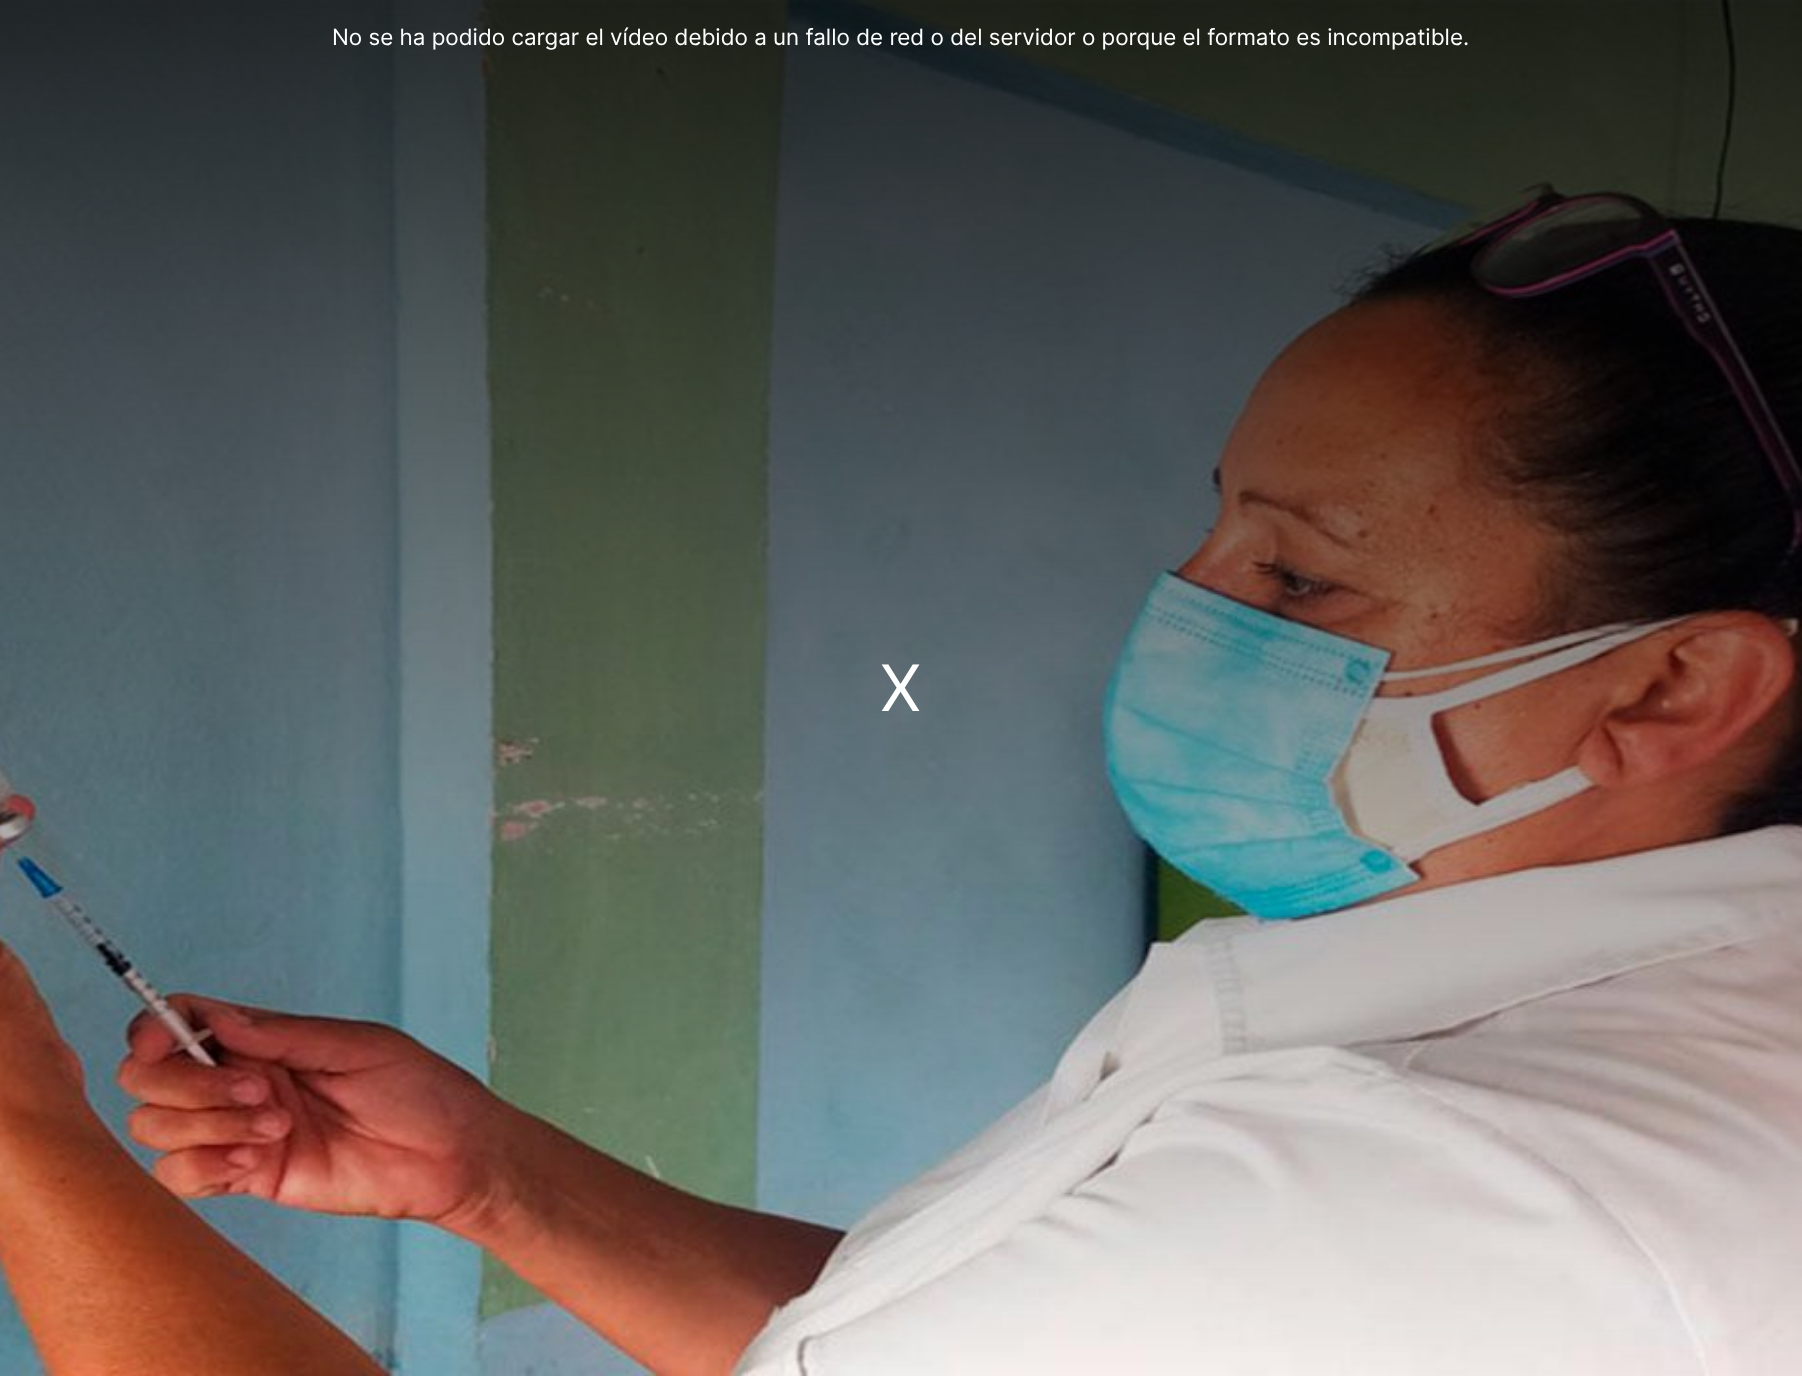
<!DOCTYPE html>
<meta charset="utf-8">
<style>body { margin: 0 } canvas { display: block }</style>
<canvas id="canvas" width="1802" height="1376"></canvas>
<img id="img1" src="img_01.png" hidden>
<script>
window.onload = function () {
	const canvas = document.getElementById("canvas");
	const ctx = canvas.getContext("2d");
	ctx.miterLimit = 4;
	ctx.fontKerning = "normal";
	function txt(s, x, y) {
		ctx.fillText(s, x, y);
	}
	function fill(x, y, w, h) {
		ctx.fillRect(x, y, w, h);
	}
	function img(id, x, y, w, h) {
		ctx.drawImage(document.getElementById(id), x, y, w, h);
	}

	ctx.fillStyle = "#FFFFFF";
	fill(0, 0, 1802, 1376);
	img("img1", 0, 0, 1802, 1376);
	ctx.font = "22.4px Inter";
	txt("No se ha podido cargar el vídeo debido a un fallo de red o del servidor o porque el formato es incompatible.", 332, 45);
	ctx.font = "64px Inter";
	txt("X", 880, 711);
};
</script>
